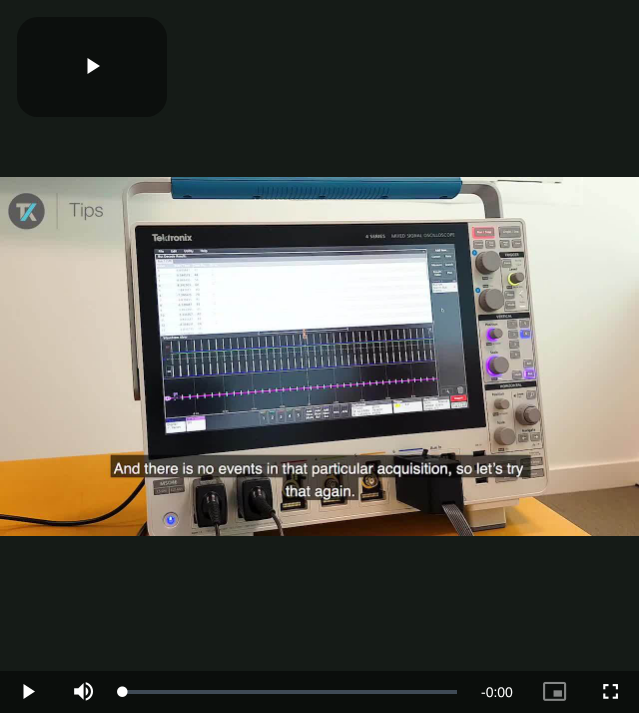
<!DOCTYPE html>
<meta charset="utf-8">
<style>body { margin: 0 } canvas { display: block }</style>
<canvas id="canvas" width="639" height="713"></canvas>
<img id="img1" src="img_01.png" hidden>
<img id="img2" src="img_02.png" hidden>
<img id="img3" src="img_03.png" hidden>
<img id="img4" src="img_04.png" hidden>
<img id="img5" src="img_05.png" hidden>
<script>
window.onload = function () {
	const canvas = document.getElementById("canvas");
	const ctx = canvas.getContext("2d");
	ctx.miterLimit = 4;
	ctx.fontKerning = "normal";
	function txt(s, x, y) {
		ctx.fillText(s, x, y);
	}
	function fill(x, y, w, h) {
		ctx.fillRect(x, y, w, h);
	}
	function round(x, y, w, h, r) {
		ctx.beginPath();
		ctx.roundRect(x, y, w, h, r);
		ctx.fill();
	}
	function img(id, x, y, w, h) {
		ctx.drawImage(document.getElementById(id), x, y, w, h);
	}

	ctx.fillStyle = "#151B17";
	fill(0, 0, 639, 713);
	ctx.fillStyle = "#0C0F0D";
	round(17, 17, 150, 100, 21);
	ctx.fillStyle = "#FFFFFF";
	ctx.beginPath();
	ctx.moveTo(87.5, 58);
	ctx.lineTo(87.5, 74);
	ctx.lineTo(100, 66);
	ctx.closePath();
	ctx.fill();
	img("img1", 0, 177, 639, 359);
	ctx.fillStyle = "#0B0E0C";
	fill(0, 671, 639, 42);
	ctx.fillStyle = "#FFFFFF";
	ctx.beginPath();
	ctx.moveTo(23.5, 684);
	ctx.lineTo(23.5, 699);
	ctx.lineTo(35, 691.5);
	ctx.closePath();
	ctx.fill();
	img("img2", 74, 682, 20, 19);
	ctx.fillStyle = "#3F4A56";
	fill(122, 690, 335, 4);
	img("img3", 117, 686, 11, 11);
	img("img4", 543, 681, 24, 20);
	img("img5", 603, 684, 15, 15);
	ctx.font = "14px Liberation Sans";
	ctx.fillStyle = "#FFFFFF";
	txt("-0:00", 481, 697);
};
</script>
